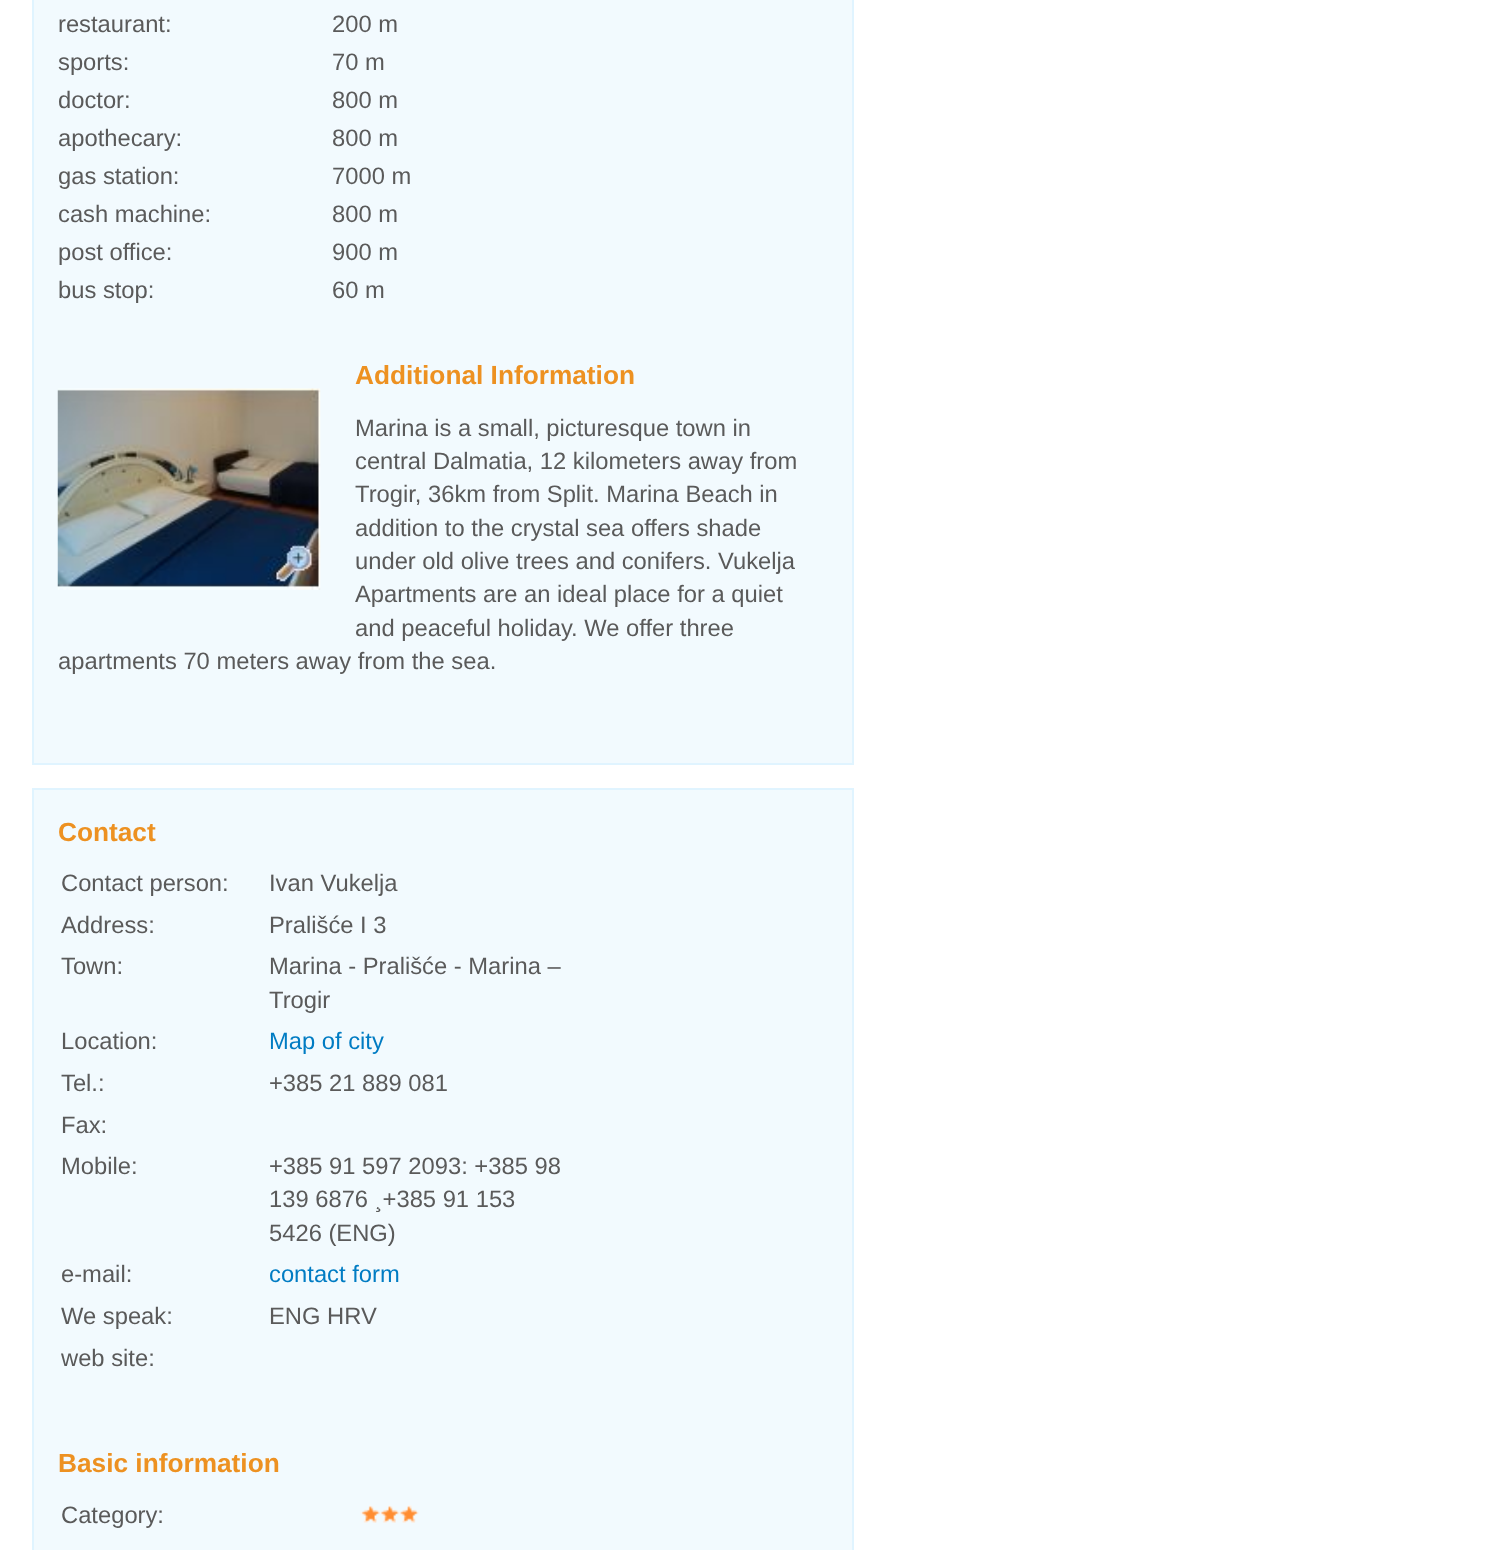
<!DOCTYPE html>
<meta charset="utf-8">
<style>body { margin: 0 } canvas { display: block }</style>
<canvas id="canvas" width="1503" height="1550"></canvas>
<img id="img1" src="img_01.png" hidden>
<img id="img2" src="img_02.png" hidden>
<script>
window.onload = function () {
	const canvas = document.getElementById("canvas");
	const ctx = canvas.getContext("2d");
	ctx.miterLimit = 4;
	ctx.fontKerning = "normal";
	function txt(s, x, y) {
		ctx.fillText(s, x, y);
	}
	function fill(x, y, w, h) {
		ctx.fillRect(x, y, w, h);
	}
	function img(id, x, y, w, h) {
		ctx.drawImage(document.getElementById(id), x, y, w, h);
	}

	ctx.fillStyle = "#FFFFFF";
	fill(0, 0, 1503, 1550);
	ctx.fillStyle = "#F2FAFE";
	ctx.beginPath();
	ctx.rect(33, -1, 820, 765);
	ctx.fill();
	ctx.strokeStyle = "#E0F4FF";
	ctx.lineWidth = 2;
	ctx.stroke();
	img("img1", 57, 388, 264, 202);
	ctx.beginPath();
	ctx.rect(33, 789, 820, 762);
	ctx.fill();
	ctx.stroke();
	img("img2", 360, 1505, 59, 18);
	ctx.font = "23.75px Liberation Sans";
	ctx.fillStyle = "#5A5A5A";
	txt("restaurant:", 58, 32);
	txt("200 m", 332, 32);
	txt("sports:", 58, 70);
	txt("70 m", 332, 70);
	txt("doctor:", 58, 108);
	txt("800 m", 332, 108);
	txt("apothecary:", 58, 146);
	txt("800 m", 332, 146);
	txt("gas station:", 58, 184);
	txt("7000 m", 332, 184);
	txt("cash machine:", 58, 222);
	txt("800 m", 332, 222);
	txt("post office:", 58, 260);
	txt("900 m", 332, 260);
	txt("bus stop:", 58, 298);
	txt("60 m", 332, 298);
	ctx.font = "bold 26.25px Liberation Sans";
	ctx.fillStyle = "#ED9121";
	txt("Additional Information", 355, 384);
	ctx.font = "23.75px Liberation Sans";
	ctx.fillStyle = "#5A5A5A";
	txt("Marina is a small, picturesque town in", 355, 436);
	txt("central Dalmatia, 12 kilometers away from", 355, 469);
	txt("Trogir, 36km from Split. Marina Beach in", 355, 502);
	txt("addition to the crystal sea offers shade", 355, 536);
	txt("under old olive trees and conifers. Vukelja", 355, 569);
	txt("Apartments are an ideal place for a quiet", 355, 602);
	txt("and peaceful holiday. We offer three", 355, 636);
	txt("apartments 70 meters away from the sea.", 58, 669);
	ctx.font = "bold 26.25px Liberation Sans";
	ctx.fillStyle = "#ED9121";
	txt("Contact", 58, 841);
	ctx.font = "23.75px Liberation Sans";
	ctx.fillStyle = "#5A5A5A";
	txt("Contact person:", 61, 891);
	txt("Ivan Vukelja", 269, 891);
	txt("Address:", 61, 933);
	txt("Prališće I 3", 269, 933);
	txt("Town:", 61, 974);
	txt("Marina - Prališće - Marina –", 269, 974);
	txt("Trogir", 269, 1008);
	txt("Location:", 61, 1049);
	ctx.fillStyle = "#007CC3";
	txt("Map of city", 269, 1049);
	ctx.fillStyle = "#5A5A5A";
	txt("Tel.:", 61, 1091);
	txt("+385 21 889 081", 269, 1091);
	txt("Fax:", 61, 1133);
	txt("Mobile:", 61, 1174);
	txt("+385 91 597 2093: +385 98", 269, 1174);
	txt("139 6876 ¸+385 91 153", 269, 1207);
	txt("5426 (ENG)", 269, 1241);
	txt("e-mail:", 61, 1282);
	ctx.fillStyle = "#007CC3";
	txt("contact form", 269, 1282);
	ctx.fillStyle = "#5A5A5A";
	txt("We speak:", 61, 1324);
	txt("ENG HRV", 269, 1324);
	txt("web site:", 61, 1366);
	ctx.font = "bold 26.25px Liberation Sans";
	ctx.fillStyle = "#ED9121";
	txt("Basic information", 58, 1472);
	ctx.font = "23.75px Liberation Sans";
	ctx.fillStyle = "#5A5A5A";
	txt("Category:", 61, 1523);
};
</script>
